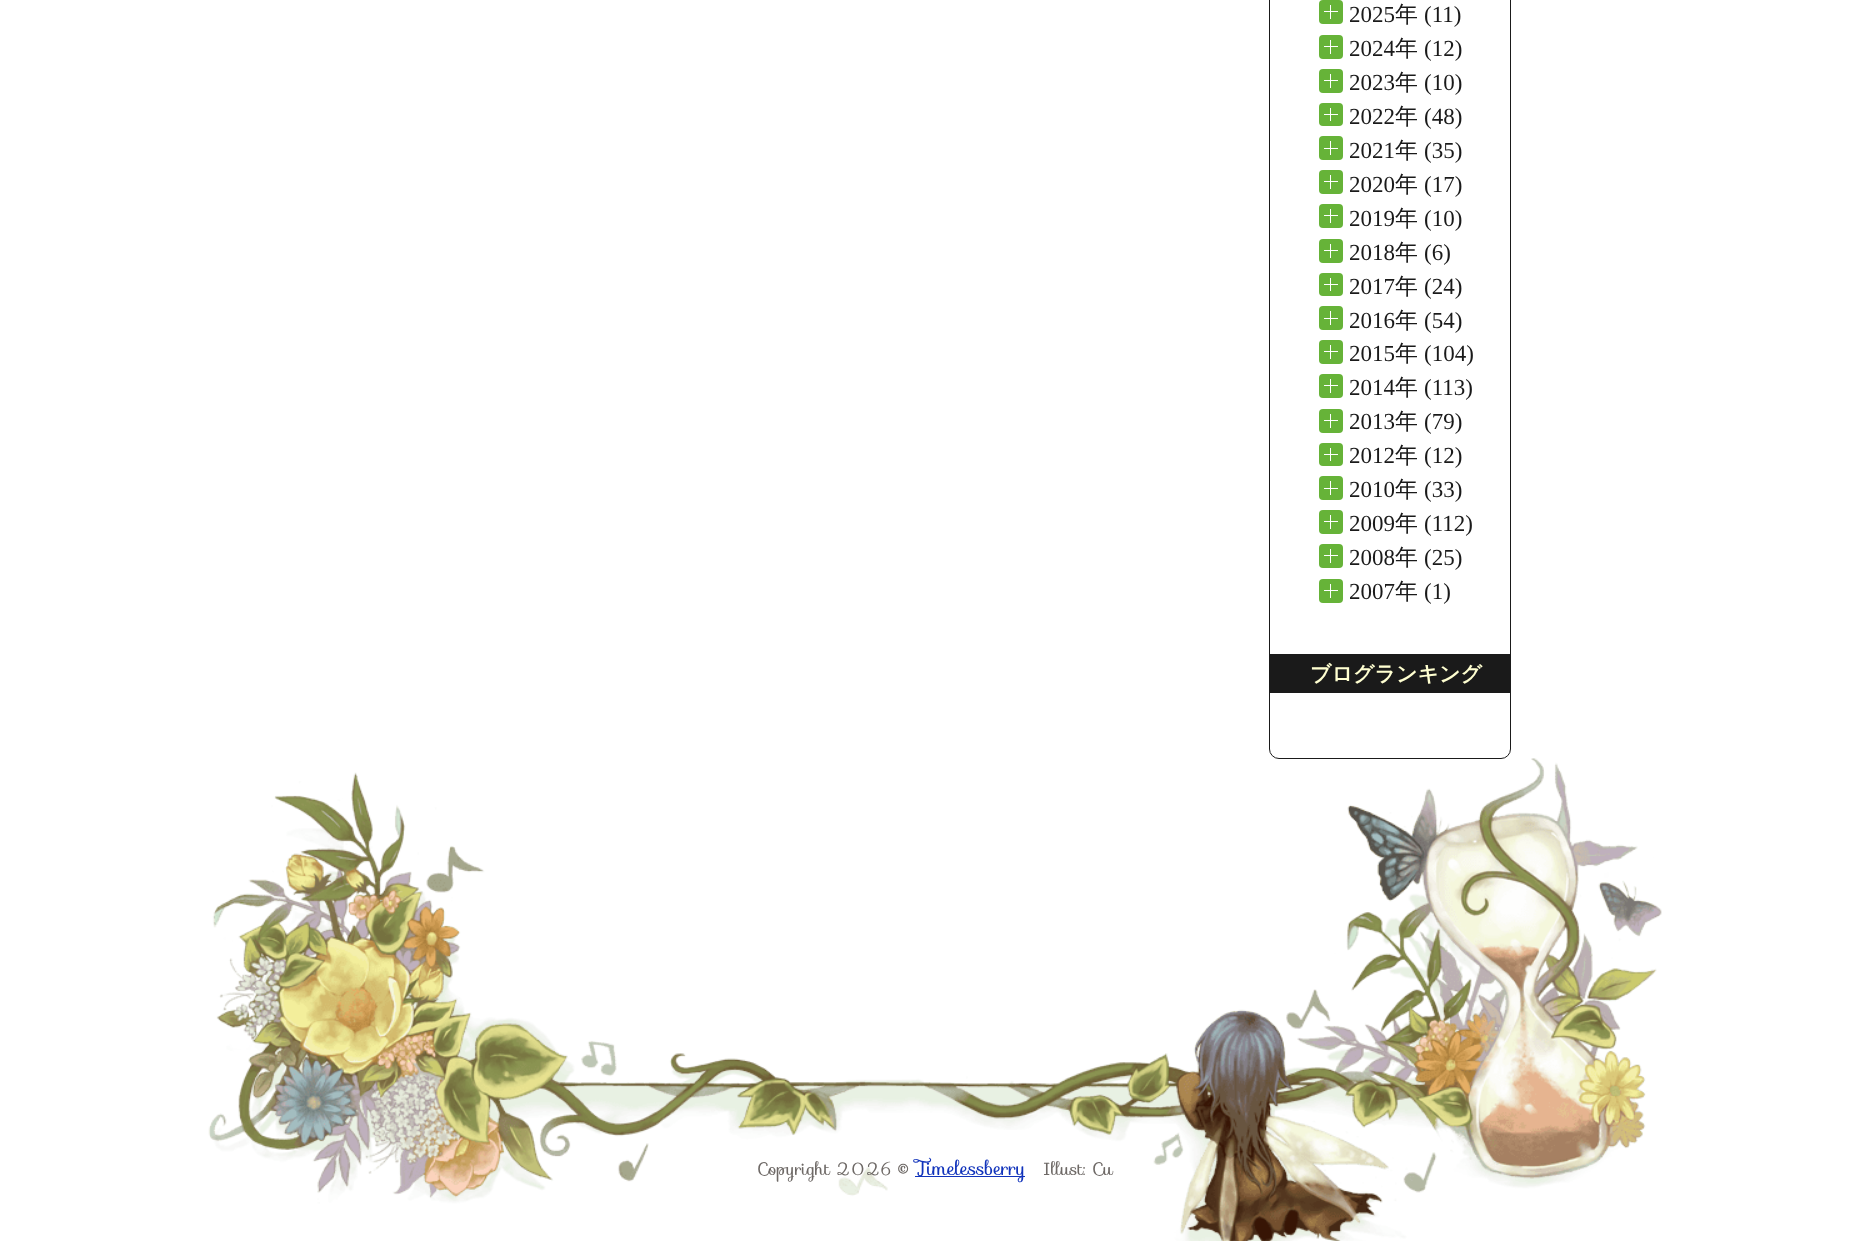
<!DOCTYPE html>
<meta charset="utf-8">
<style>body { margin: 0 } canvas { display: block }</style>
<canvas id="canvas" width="1869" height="1241"></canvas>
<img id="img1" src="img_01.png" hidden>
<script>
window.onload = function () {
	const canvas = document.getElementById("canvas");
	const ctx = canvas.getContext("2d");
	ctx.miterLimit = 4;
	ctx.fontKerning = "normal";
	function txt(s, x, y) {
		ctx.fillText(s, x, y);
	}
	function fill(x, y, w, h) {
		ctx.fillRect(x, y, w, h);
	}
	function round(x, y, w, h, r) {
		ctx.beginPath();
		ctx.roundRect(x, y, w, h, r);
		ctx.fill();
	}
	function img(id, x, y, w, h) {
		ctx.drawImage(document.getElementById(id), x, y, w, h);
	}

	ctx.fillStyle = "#FFFFFF";
	fill(0, 0, 1869, 1241);
	img("img1", 208, 758, 1454, 483);
	ctx.beginPath();
	ctx.roundRect(1269.5, -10.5, 241, 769, 9.5);
	ctx.strokeStyle = "#1A1A1A";
	ctx.stroke();
	ctx.fillStyle = "#66B338";
	round(1319, 0, 24, 24, 4);
	ctx.fillStyle = "#FFFFFF";
	fill(1324, 11, 14, 1);
	fill(1330, 5, 1, 14);
	ctx.fillStyle = "#66B338";
	round(1319, 35, 24, 24, 4);
	ctx.fillStyle = "#FFFFFF";
	fill(1324, 46, 14, 1);
	fill(1330, 40, 1, 14);
	ctx.fillStyle = "#66B338";
	round(1319, 69, 24, 24, 4);
	ctx.fillStyle = "#FFFFFF";
	fill(1324, 80, 14, 1);
	fill(1330, 74, 1, 14);
	ctx.fillStyle = "#66B338";
	round(1319, 103, 24, 23, 4);
	ctx.fillStyle = "#FFFFFF";
	fill(1324, 114, 14, 1);
	fill(1330, 108, 1, 13);
	ctx.fillStyle = "#66B338";
	round(1319, 136, 24, 24, 4);
	ctx.fillStyle = "#FFFFFF";
	fill(1324, 148, 14, 1);
	fill(1330, 141, 1, 14);
	ctx.fillStyle = "#66B338";
	round(1319, 170, 24, 24, 4);
	ctx.fillStyle = "#FFFFFF";
	fill(1324, 181, 14, 1);
	fill(1330, 175, 1, 14);
	ctx.fillStyle = "#66B338";
	round(1319, 204, 24, 24, 4);
	ctx.fillStyle = "#FFFFFF";
	fill(1324, 215, 14, 1);
	fill(1330, 209, 1, 14);
	ctx.fillStyle = "#66B338";
	round(1319, 239, 24, 24, 4);
	ctx.fillStyle = "#FFFFFF";
	fill(1324, 250, 14, 1);
	fill(1330, 244, 1, 14);
	ctx.fillStyle = "#66B338";
	round(1319, 273, 24, 23, 4);
	ctx.fillStyle = "#FFFFFF";
	fill(1324, 284, 14, 1);
	fill(1330, 278, 1, 13);
	ctx.fillStyle = "#66B338";
	round(1319, 306, 24, 24, 4);
	ctx.fillStyle = "#FFFFFF";
	fill(1324, 318, 14, 1);
	fill(1330, 311, 1, 14);
	ctx.fillStyle = "#66B338";
	round(1319, 340, 24, 24, 4);
	ctx.fillStyle = "#FFFFFF";
	fill(1324, 351, 14, 1);
	fill(1330, 345, 1, 14);
	ctx.fillStyle = "#66B338";
	round(1319, 374, 24, 24, 4);
	ctx.fillStyle = "#FFFFFF";
	fill(1324, 385, 14, 1);
	fill(1330, 379, 1, 14);
	ctx.fillStyle = "#66B338";
	round(1319, 409, 24, 24, 4);
	ctx.fillStyle = "#FFFFFF";
	fill(1324, 420, 14, 1);
	fill(1330, 414, 1, 14);
	ctx.fillStyle = "#66B338";
	round(1319, 443, 24, 23, 4);
	ctx.fillStyle = "#FFFFFF";
	fill(1324, 454, 14, 1);
	fill(1330, 448, 1, 13);
	ctx.fillStyle = "#66B338";
	round(1319, 476, 24, 24, 4);
	ctx.fillStyle = "#FFFFFF";
	fill(1324, 488, 14, 1);
	fill(1330, 481, 1, 14);
	ctx.fillStyle = "#66B338";
	round(1319, 510, 24, 24, 4);
	ctx.fillStyle = "#FFFFFF";
	fill(1324, 521, 14, 1);
	fill(1330, 515, 1, 14);
	ctx.fillStyle = "#66B338";
	round(1319, 544, 24, 24, 4);
	ctx.fillStyle = "#FFFFFF";
	fill(1324, 555, 14, 1);
	fill(1330, 549, 1, 14);
	ctx.fillStyle = "#66B338";
	round(1319, 579, 24, 24, 4);
	ctx.fillStyle = "#FFFFFF";
	fill(1324, 590, 14, 1);
	fill(1330, 584, 1, 14);
	ctx.fillStyle = "#1A1A1A";
	fill(1270, 654, 240, 39);
	ctx.fillStyle = "#1133BB";
	fill(915, 1176, 110, 1);
	ctx.font = "23px Liberation Serif";
	ctx.fillStyle = "#1A1A1A";
	txt("2025", 1349, 22);
	ctx.font = "500 23px WenQuanYi Zen Hei";
	txt("年", 1395, 22);
	ctx.font = "23px Liberation Serif";
	txt("(11)", 1424, 22);
	txt("2024", 1349, 56);
	ctx.font = "500 23px WenQuanYi Zen Hei";
	txt("年", 1395, 56);
	ctx.font = "23px Liberation Serif";
	txt("(12)", 1424, 56);
	txt("2023", 1349, 90);
	ctx.font = "500 23px WenQuanYi Zen Hei";
	txt("年", 1395, 90);
	ctx.font = "23px Liberation Serif";
	txt("(10)", 1424, 90);
	txt("2022", 1349, 124);
	ctx.font = "500 23px WenQuanYi Zen Hei";
	txt("年", 1395, 124);
	ctx.font = "23px Liberation Serif";
	txt("(48)", 1424, 124);
	txt("2021", 1349, 158);
	ctx.font = "500 23px WenQuanYi Zen Hei";
	txt("年", 1395, 158);
	ctx.font = "23px Liberation Serif";
	txt("(35)", 1424, 158);
	txt("2020", 1349, 192);
	ctx.font = "500 23px WenQuanYi Zen Hei";
	txt("年", 1395, 192);
	ctx.font = "23px Liberation Serif";
	txt("(17)", 1424, 192);
	txt("2019", 1349, 226);
	ctx.font = "500 23px WenQuanYi Zen Hei";
	txt("年", 1395, 226);
	ctx.font = "23px Liberation Serif";
	txt("(10)", 1424, 226);
	txt("2018", 1349, 260);
	ctx.font = "500 23px WenQuanYi Zen Hei";
	txt("年", 1395, 260);
	ctx.font = "23px Liberation Serif";
	txt("(6)", 1424, 260);
	txt("2017", 1349, 294);
	ctx.font = "500 23px WenQuanYi Zen Hei";
	txt("年", 1395, 294);
	ctx.font = "23px Liberation Serif";
	txt("(24)", 1424, 294);
	txt("2016", 1349, 328);
	ctx.font = "500 23px WenQuanYi Zen Hei";
	txt("年", 1395, 328);
	ctx.font = "23px Liberation Serif";
	txt("(54)", 1424, 328);
	txt("2015", 1349, 361);
	ctx.font = "500 23px WenQuanYi Zen Hei";
	txt("年", 1395, 361);
	ctx.font = "23px Liberation Serif";
	txt("(104)", 1424, 361);
	txt("2014", 1349, 395);
	ctx.font = "500 23px WenQuanYi Zen Hei";
	txt("年", 1395, 395);
	ctx.font = "23px Liberation Serif";
	txt("(113)", 1424, 395);
	txt("2013", 1349, 429);
	ctx.font = "500 23px WenQuanYi Zen Hei";
	txt("年", 1395, 429);
	ctx.font = "23px Liberation Serif";
	txt("(79)", 1424, 429);
	txt("2012", 1349, 463);
	ctx.font = "500 23px WenQuanYi Zen Hei";
	txt("年", 1395, 463);
	ctx.font = "23px Liberation Serif";
	txt("(12)", 1424, 463);
	txt("2010", 1349, 497);
	ctx.font = "500 23px WenQuanYi Zen Hei";
	txt("年", 1395, 497);
	ctx.font = "23px Liberation Serif";
	txt("(33)", 1424, 497);
	txt("2009", 1349, 531);
	ctx.font = "500 23px WenQuanYi Zen Hei";
	txt("年", 1395, 531);
	ctx.font = "23px Liberation Serif";
	txt("(112)", 1424, 531);
	txt("2008", 1349, 565);
	ctx.font = "500 23px WenQuanYi Zen Hei";
	txt("年", 1395, 565);
	ctx.font = "23px Liberation Serif";
	txt("(25)", 1424, 565);
	txt("2007", 1349, 599);
	ctx.font = "500 23px WenQuanYi Zen Hei";
	txt("年", 1395, 599);
	ctx.font = "23px Liberation Serif";
	txt("(1)", 1424, 599);
	ctx.font = "bold 21px WenQuanYi Zen Hei";
	ctx.fillStyle = "#FFFFD1";
	txt("ブログランキング", 1310, 681);
	ctx.font = "17.5px Sofia";
	ctx.fillStyle = "#6E6966";
	txt("Copyright 2026 ©", 757, 1175);
	ctx.font = "19.25px Sofia";
	ctx.fillStyle = "#1133BB";
	txt("Timelessberry", 915, 1175);
	ctx.font = "17.5px Sofia";
	ctx.fillStyle = "#6E6966";
	txt("Illust: Cu", 1043, 1175);
};
</script>
